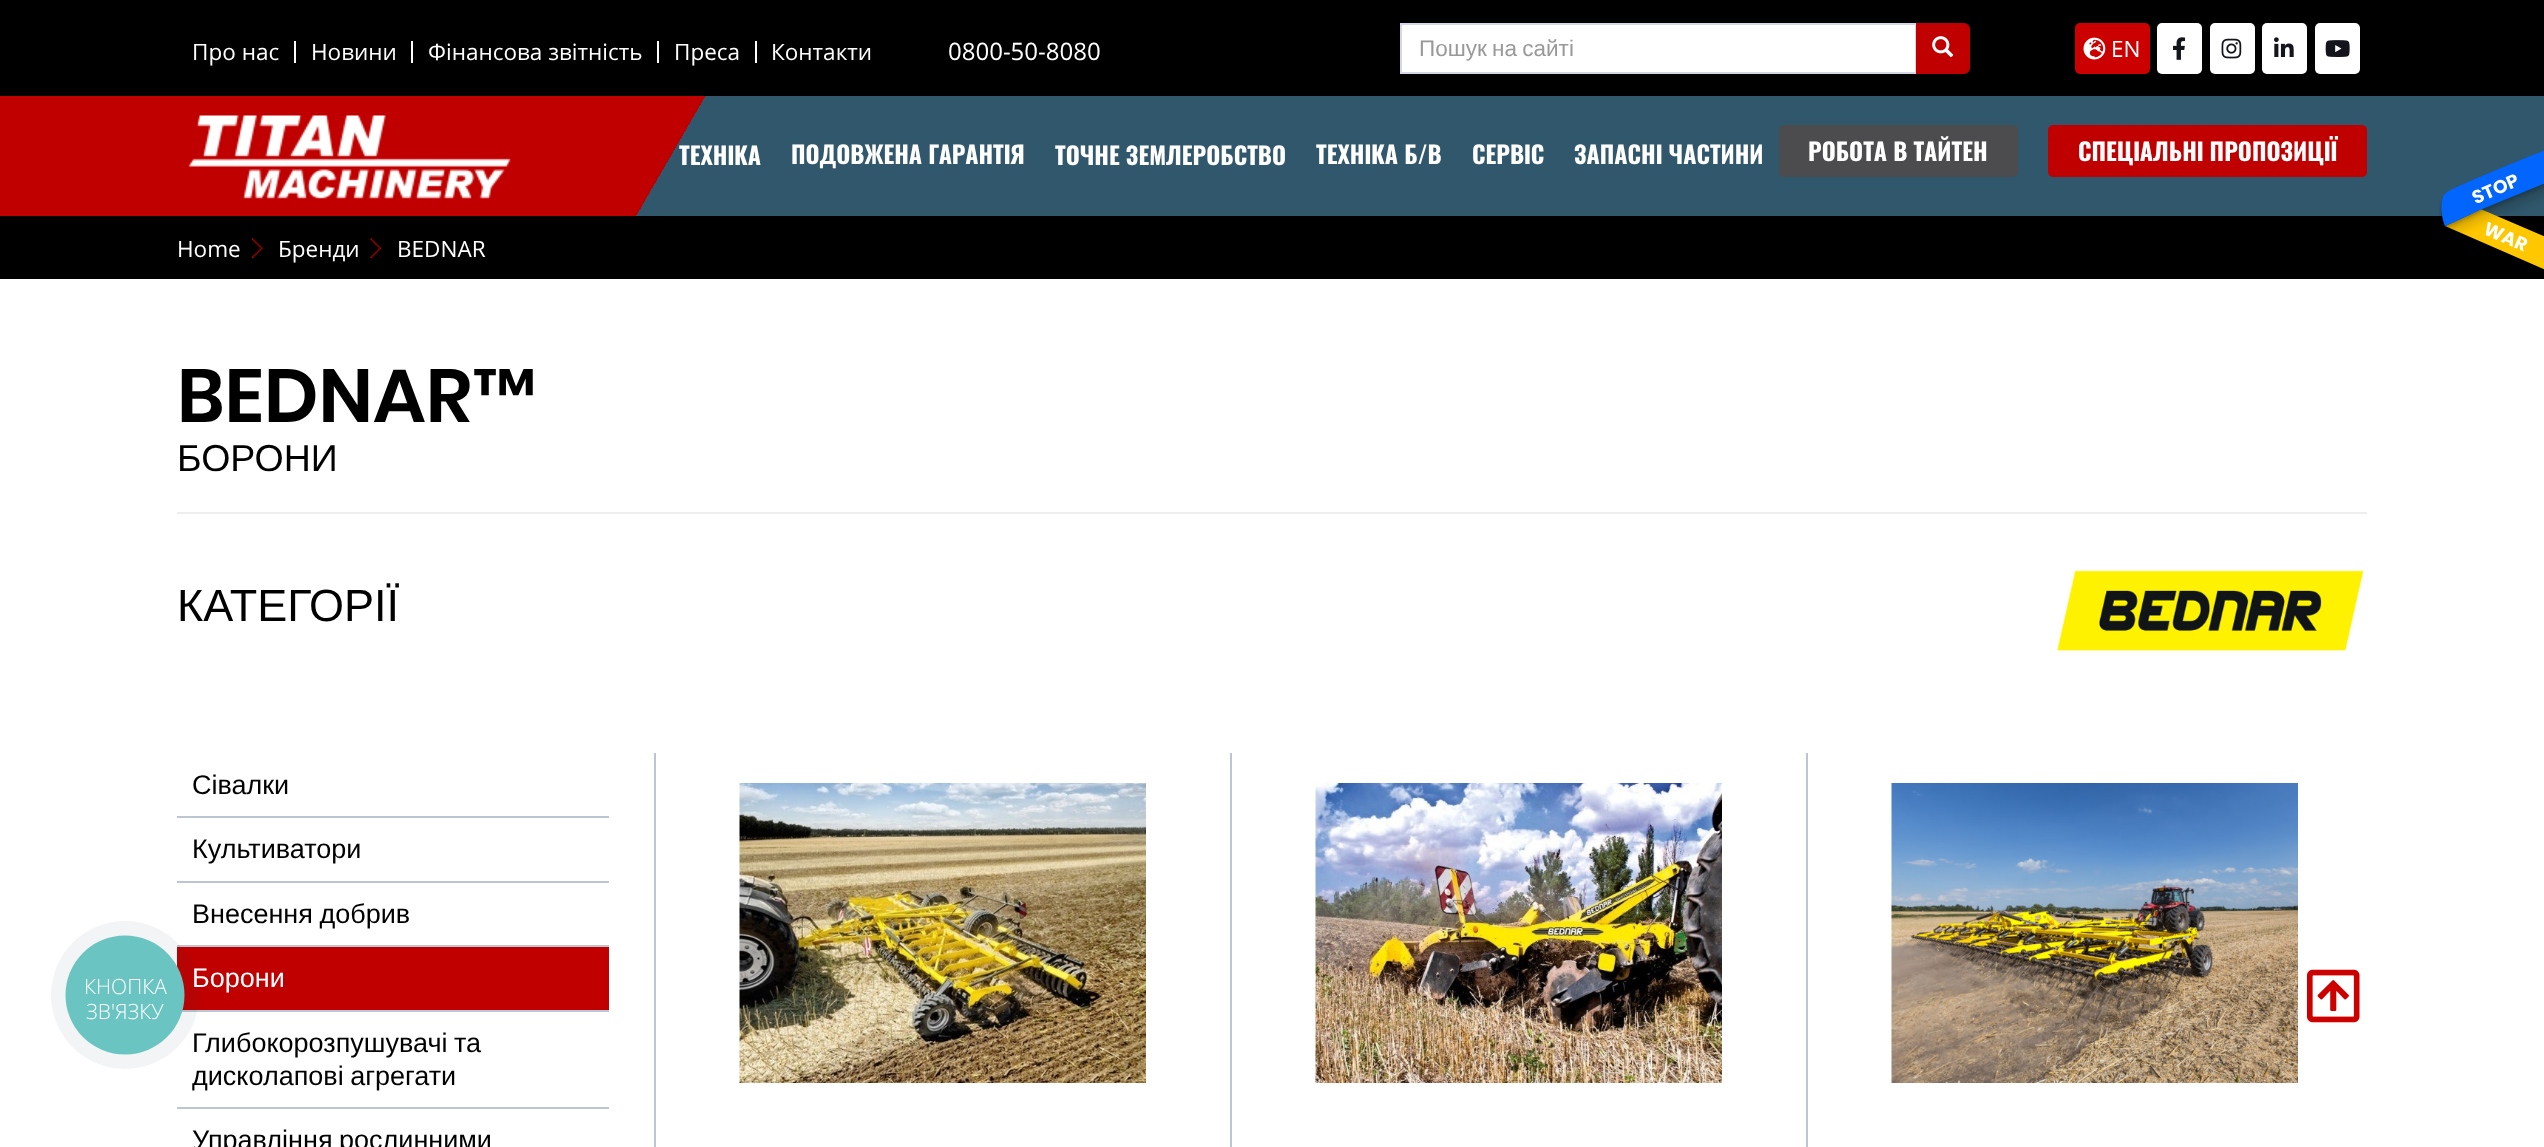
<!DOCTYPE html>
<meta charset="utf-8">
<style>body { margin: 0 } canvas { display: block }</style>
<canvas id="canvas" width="2544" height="1147"></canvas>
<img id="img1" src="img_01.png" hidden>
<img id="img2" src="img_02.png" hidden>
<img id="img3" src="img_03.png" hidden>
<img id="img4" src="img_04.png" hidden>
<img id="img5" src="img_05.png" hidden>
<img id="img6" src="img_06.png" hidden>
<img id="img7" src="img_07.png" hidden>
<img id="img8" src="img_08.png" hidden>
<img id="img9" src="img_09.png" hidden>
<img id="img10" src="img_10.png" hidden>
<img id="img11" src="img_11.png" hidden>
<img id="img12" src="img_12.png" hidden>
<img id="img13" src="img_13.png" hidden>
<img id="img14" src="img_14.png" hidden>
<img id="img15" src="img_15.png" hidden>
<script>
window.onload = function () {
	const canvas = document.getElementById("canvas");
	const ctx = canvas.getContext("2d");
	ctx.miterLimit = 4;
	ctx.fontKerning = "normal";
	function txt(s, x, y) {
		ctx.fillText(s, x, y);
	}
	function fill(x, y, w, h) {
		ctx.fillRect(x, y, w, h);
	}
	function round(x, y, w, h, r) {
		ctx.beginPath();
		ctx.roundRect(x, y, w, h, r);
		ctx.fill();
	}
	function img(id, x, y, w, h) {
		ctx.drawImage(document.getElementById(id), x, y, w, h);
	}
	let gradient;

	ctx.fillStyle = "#FFFFFF";
	fill(0, 0, 2544, 1147);
	ctx.fillStyle = "#000000";
	fill(0, 0, 2544, 96);
	ctx.fillStyle = "#FFFFFF";
	fill(294, 41, 2, 22);
	fill(411, 41, 2, 22);
	fill(657, 41, 2, 22);
	fill(755, 41, 2, 22);
	ctx.beginPath();
	ctx.rect(1401, 24, 515, 49);
	ctx.fill();
	ctx.strokeStyle = "#D4D8E6";
	ctx.lineWidth = 2;
	ctx.stroke();
	ctx.fillStyle = "#C00000";
	ctx.beginPath();
	ctx.roundRect(1917, 24, 52, 49, [0, 5, 5, 0]);
	ctx.fill();
	ctx.strokeStyle = "#C00000";
	ctx.stroke();
	img("img1", 1932, 36, 22, 22);
	ctx.fillStyle = "#CD0000";
	round(2075, 23, 75, 51, 5);
	img("img2", 2083, 37, 23, 23);
	ctx.fillStyle = "#FFFFFF";
	round(2157, 23, 45, 51, 5);
	img("img3", 2173, 37, 13, 23);
	round(2210, 23, 45, 51, 5);
	img("img4", 2221, 38, 21, 21);
	round(2262, 23, 45, 51, 5);
	img("img5", 2274, 37, 20, 20);
	round(2315, 23, 45, 51, 5);
	img("img6", 2325, 40, 25, 17);
	gradient = ctx.createLinearGradient(2252, 722, 292, -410);
	gradient.addColorStop(0.73, "#30576B");
	gradient.addColorStop(0.73, "#C00000");
	ctx.fillStyle = gradient;
	fill(0, 96, 2544, 120);
	img("img7", 188, 115, 323, 84);
	ctx.fillStyle = "#4C4C4E";
	round(1779, 125, 239, 52, 5);
	ctx.fillStyle = "#C00000";
	round(2048, 125, 319, 52, 5);
	ctx.fillStyle = "#000000";
	fill(0, 216, 2544, 63);
	img("img8", 252, 238, 11, 20);
	img("img9", 370, 238, 11, 20);
	ctx.fillStyle = "#EEEEEE";
	fill(177, 512, 2190, 2);
	img("img10", 2057, 570, 307, 82);
	ctx.fillStyle = "#BCC5D2";
	fill(177, 816, 432, 2);
	fill(177, 881, 432, 2);
	fill(177, 945, 432, 2);
	ctx.fillStyle = "#C00000";
	fill(177, 947, 432, 63);
	ctx.fillStyle = "#BCC5D2";
	fill(177, 1010, 432, 2);
	fill(177, 1107, 432, 2);
	fill(654, 753, 2, 394);
	img("img11", 739, 783, 407, 300);
	fill(1230, 753, 2, 394);
	img("img12", 1315, 783, 407, 300);
	fill(1806, 753, 2, 394);
	img("img13", 1891, 783, 407, 300);
	img("img14", 2439, 150, 105, 120);
	ctx.fillStyle = "rgba(42, 64, 93, 0.06)";
	ctx.beginPath();
	ctx.arc(125, 995, 74, 0, Math.PI * 2);
	ctx.fill();
	ctx.fillStyle = "#6AC4C1";
	ctx.beginPath();
	ctx.arc(125, 995, 59.5, 0, Math.PI * 2);
	ctx.fill();
	img("img15", 2307, 969, 53, 54);
	ctx.font = "22.5px Open Sans";
	ctx.fillStyle = "#FFFFFF";
	txt("Про нас", 192, 60);
	txt("Новини", 311, 60);
	txt("Фінансова звітність", 428, 60);
	txt("Преса", 674, 60);
	txt("Контакти", 771, 60);
	ctx.font = "24px Open Sans";
	txt("0800-50-8080", 948, 60);
	ctx.wordSpacing = "-1px";
	ctx.font = "22.5px Liberation Sans";
	ctx.fillStyle = "#999999";
	txt("Пошук на сайті", 1419, 56);
	ctx.wordSpacing = "0px";
	ctx.font = "22.5px Open Sans";
	ctx.fillStyle = "#FFFFFF";
	txt("EN", 2111, 57);
	ctx.font = "bold 24px Oswald";
	txt("ТЕХНІКА", 679, 165);
	txt("ПОДОВЖЕНА ГАРАНТІЯ", 791, 164);
	txt("ТОЧНЕ ЗЕМЛЕРОБСТВО", 1055, 165);
	txt("ТЕХНІКА Б/В", 1316, 164);
	txt("СЕРВІС", 1472, 164);
	txt("ЗАПАСНІ ЧАСТИНИ", 1574, 164);
	txt("РОБОТА В ТАЙТЕН", 1808, 161);
	txt("СПЕЦІАЛЬНІ ПРОПОЗИЦІЇ", 2078, 161);
	ctx.font = "22.5px Open Sans";
	txt("Home", 177, 257);
	txt("Бренди", 278, 257);
	txt("BEDNAR", 397, 257);
	ctx.font = "600 75px Poppins";
	ctx.fillStyle = "#000000";
	txt("BEDNAR™", 177, 422);
	ctx.font = "37.5px Liberation Sans";
	txt("БОРОНИ", 177, 471);
	ctx.font = "45px Liberation Sans";
	txt("КАТЕГОРІЇ", 177, 621);
	ctx.font = "27px Liberation Sans";
	txt("Сівалки", 192, 794);
	txt("Культиватори", 192, 858);
	ctx.wordSpacing = "-1px";
	txt("Внесення добрив", 192, 923);
	ctx.wordSpacing = "0px";
	ctx.fillStyle = "#FFFFFF";
	txt("Борони", 192, 987);
	ctx.wordSpacing = "-1px";
	ctx.fillStyle = "#000000";
	txt("Глибокорозпушувачі та", 192, 1052);
	txt("дисколапові агрегати", 192, 1085);
	txt("Управління рослинними", 192, 1149);
	ctx.wordSpacing = "0px";
	ctx.font = "300 21px Open Sans";
	ctx.fillStyle = "#FFFFFF";
	txt("КНОПКА", 84, 994);
	txt("ЗВ'ЯЗКУ", 86, 1019);
};
</script>
